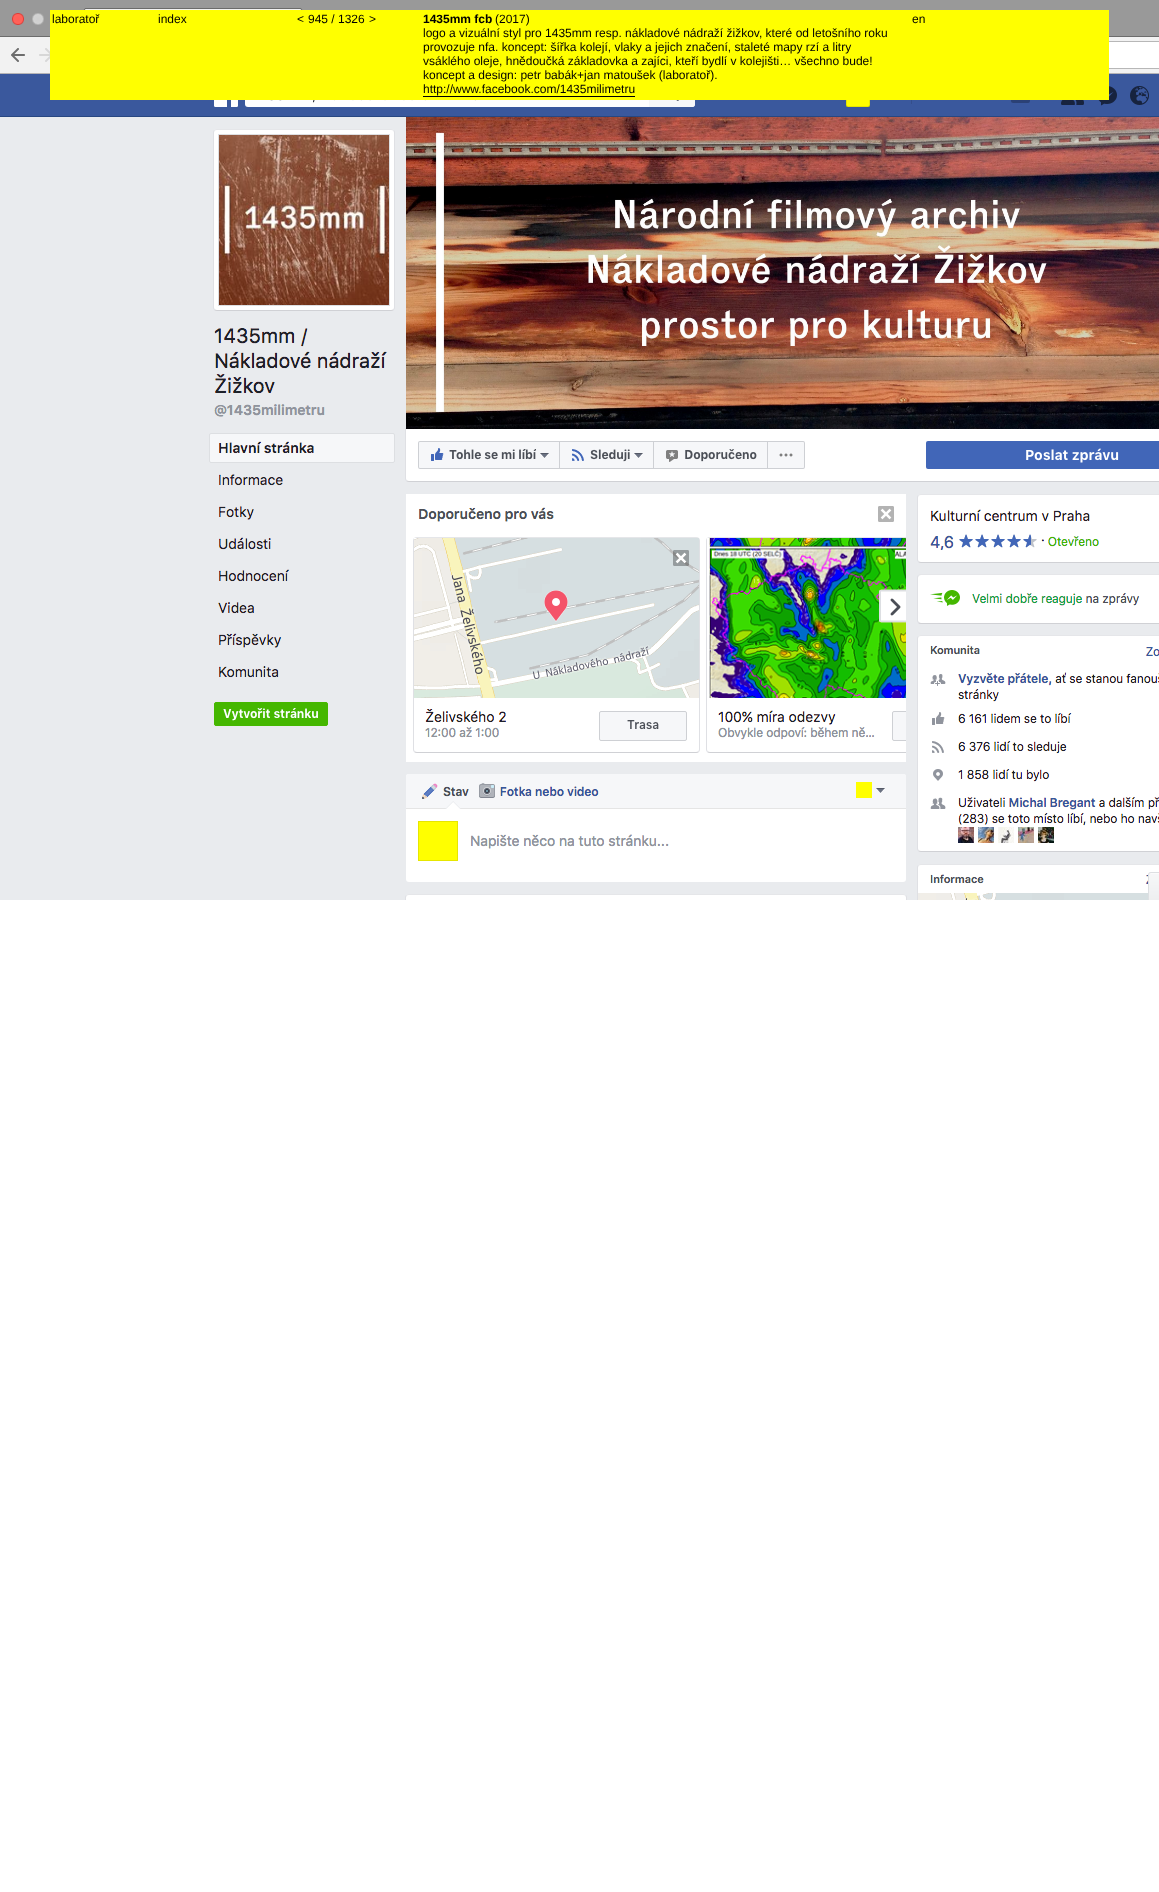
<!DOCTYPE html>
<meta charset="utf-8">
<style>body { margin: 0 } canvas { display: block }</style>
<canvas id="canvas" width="1159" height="1892"></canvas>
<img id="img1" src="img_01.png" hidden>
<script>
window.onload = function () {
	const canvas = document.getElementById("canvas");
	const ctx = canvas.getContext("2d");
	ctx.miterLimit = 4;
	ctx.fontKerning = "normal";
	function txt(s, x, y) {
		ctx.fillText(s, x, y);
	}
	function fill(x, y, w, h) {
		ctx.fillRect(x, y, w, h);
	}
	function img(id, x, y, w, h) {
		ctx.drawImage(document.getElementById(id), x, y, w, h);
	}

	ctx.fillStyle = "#FFFFFF";
	fill(0, 0, 1159, 1892);
	img("img1", 0, 0, 1159, 900);
	ctx.fillStyle = "#FFFF00";
	fill(50, 10, 1059, 90);
	ctx.fillStyle = "#000000";
	fill(423, 96, 212, 1);
	ctx.font = "12px Liberation Sans";
	txt("laboratoř", 52, 23);
	txt("index", 158, 23);
	txt("<", 297, 23);
	txt("945 / 1326", 308, 23);
	txt(">", 369, 23);
	ctx.font = "bold 12px Liberation Sans";
	txt("1435mm fcb", 423, 23);
	ctx.font = "12px Liberation Sans";
	txt("(2017)", 495, 23);
	txt("logo a vizuální styl pro 1435mm resp. nákladové nádraží žižkov, které od letošního roku", 423, 37);
	txt("provozuje nfa. koncept: šířka kolejí, vlaky a jejich značení, staleté mapy rzí a litry", 423, 51);
	txt("vsáklého oleje, hnědoučká základovka a zajíci, kteří bydlí v kolejišti… všechno bude!", 423, 65);
	txt("koncept a design: petr babák+jan matoušek (laboratoř).", 423, 79);
	txt("http://www.facebook.com/1435milimetru", 423, 93);
	txt("en", 912, 23);
};
</script>
